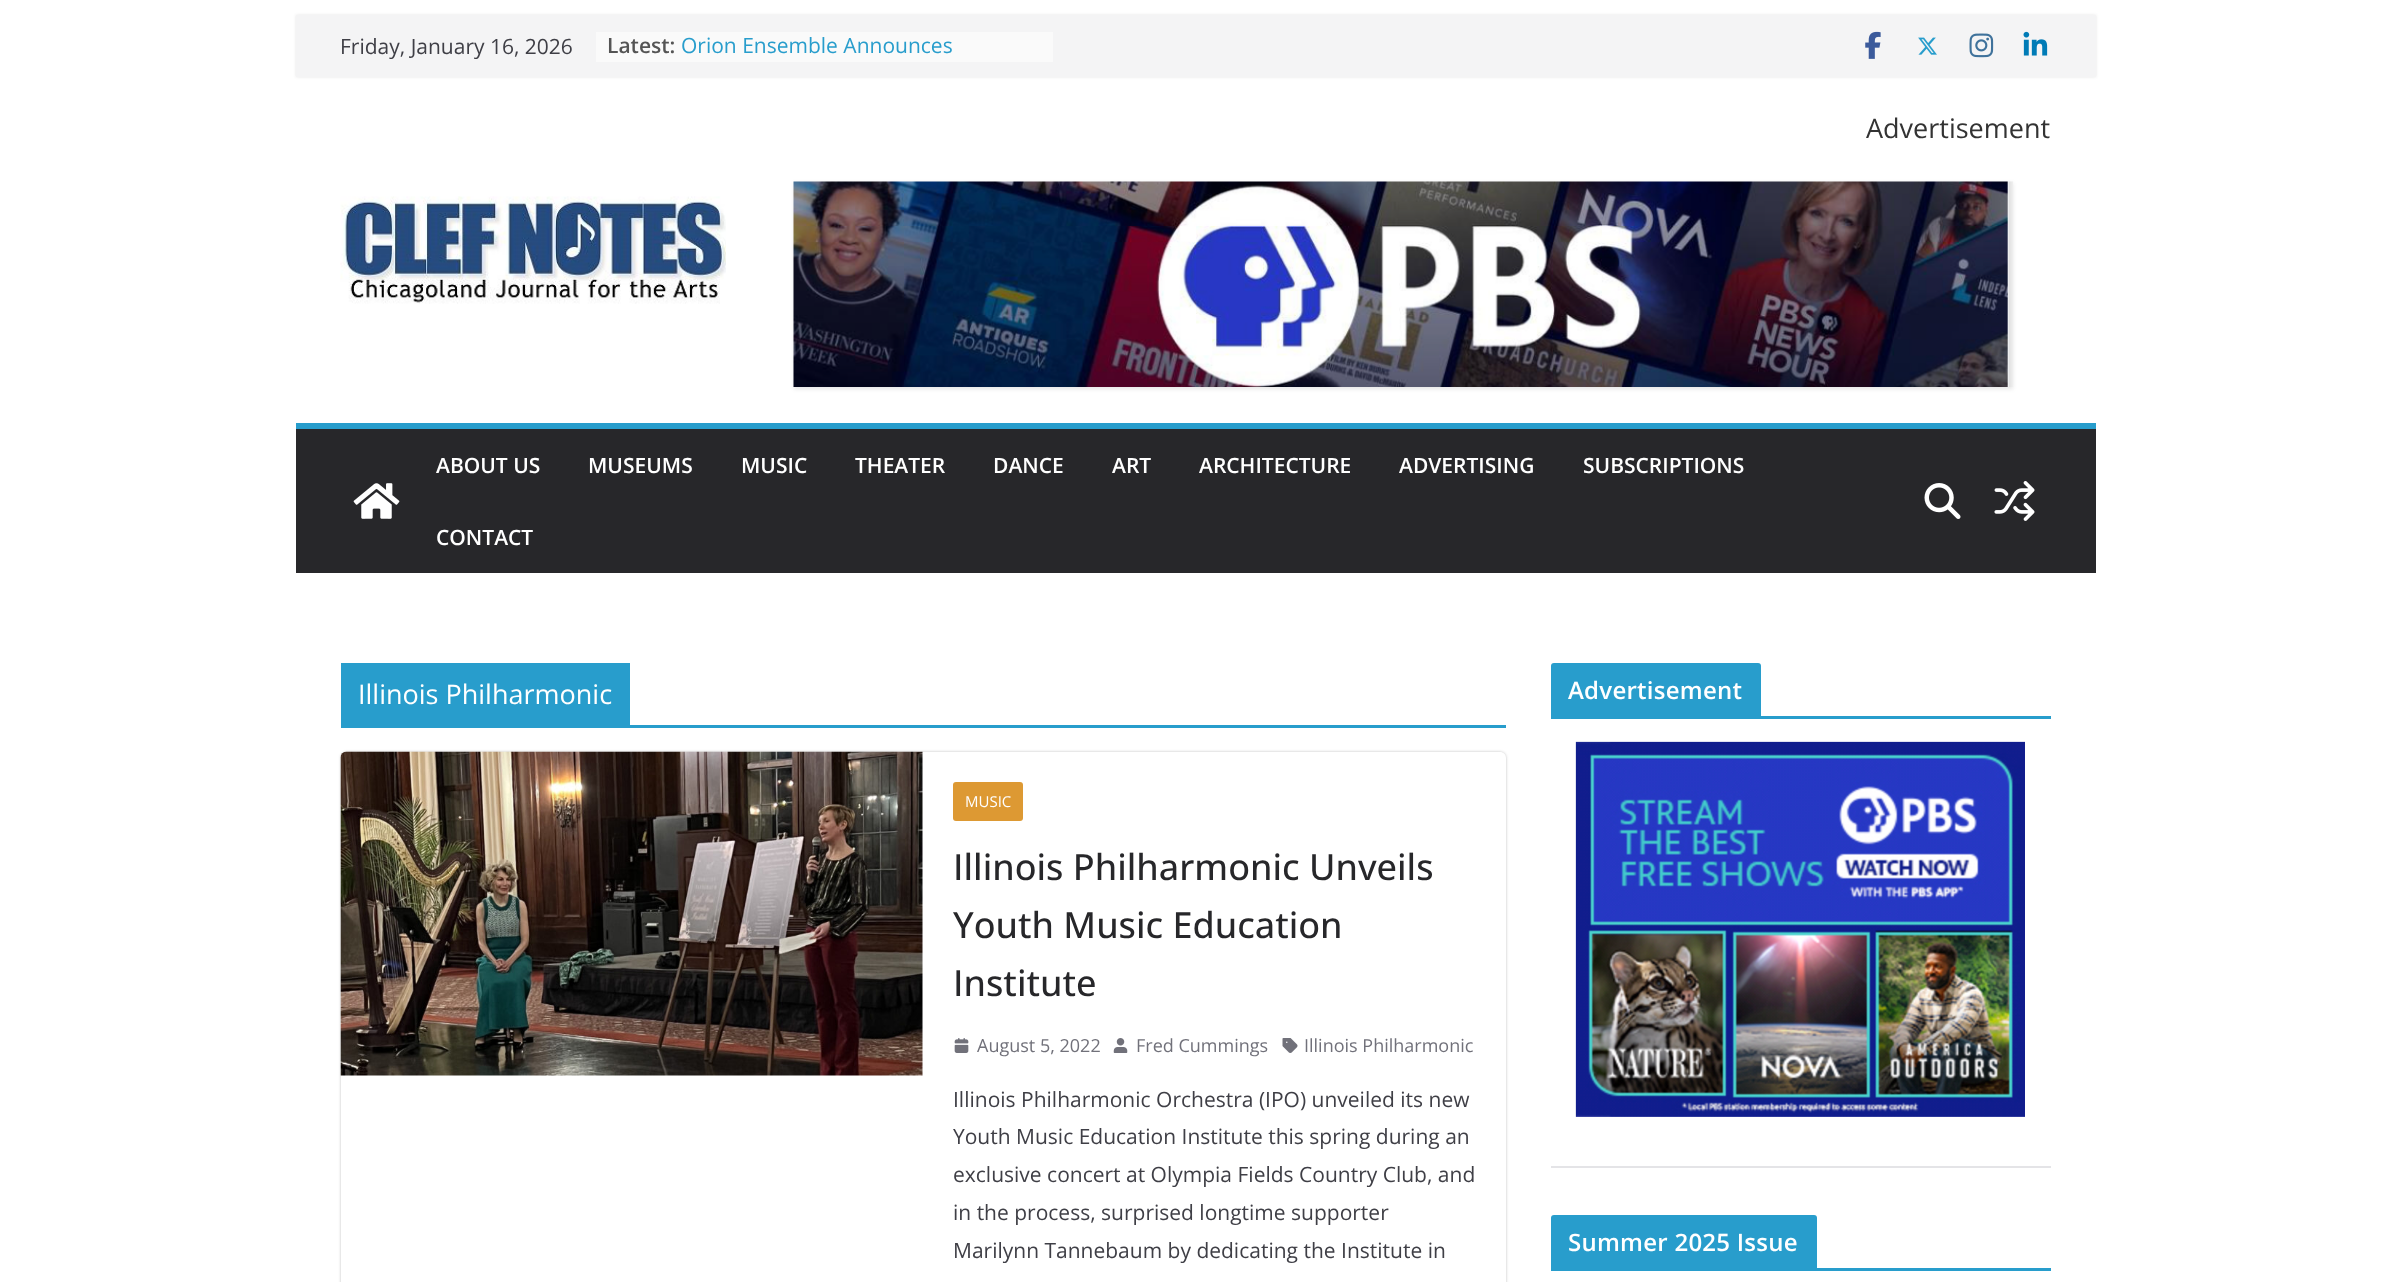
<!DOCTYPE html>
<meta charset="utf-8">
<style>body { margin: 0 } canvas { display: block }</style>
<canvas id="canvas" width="2389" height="1282"></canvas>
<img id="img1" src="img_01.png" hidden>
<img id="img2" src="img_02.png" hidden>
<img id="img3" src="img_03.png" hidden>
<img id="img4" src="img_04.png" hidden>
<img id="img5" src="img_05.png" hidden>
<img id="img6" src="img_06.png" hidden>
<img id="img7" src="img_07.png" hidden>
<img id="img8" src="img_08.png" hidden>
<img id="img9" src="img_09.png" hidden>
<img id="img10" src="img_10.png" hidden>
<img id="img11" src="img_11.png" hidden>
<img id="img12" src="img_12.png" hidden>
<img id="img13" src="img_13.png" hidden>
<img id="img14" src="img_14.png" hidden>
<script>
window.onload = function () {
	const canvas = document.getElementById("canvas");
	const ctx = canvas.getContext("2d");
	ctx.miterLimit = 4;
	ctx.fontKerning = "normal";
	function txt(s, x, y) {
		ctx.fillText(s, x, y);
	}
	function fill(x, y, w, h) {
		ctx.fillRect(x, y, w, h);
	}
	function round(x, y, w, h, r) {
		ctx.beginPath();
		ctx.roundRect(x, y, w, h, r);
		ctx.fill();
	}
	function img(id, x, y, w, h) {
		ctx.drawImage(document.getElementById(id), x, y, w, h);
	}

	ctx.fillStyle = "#FFFFFF";
	fill(0, 0, 2389, 1282);
	ctx.fillStyle = "rgba(0, 0, 0, 0.1)";
	ctx.filter = "blur(1.5px)";
	ctx.beginPath();
	ctx.rect(296, 15, 1800, 62);
	ctx.fill();
	ctx.filter = "none";
	ctx.fillStyle = "#F4F4F5";
	fill(296, 15, 1800, 62);
	ctx.fillStyle = "#FAFAFA";
	fill(596, 32, 457, 30);
	img("img1", 1865, 31, 16, 28);
	img("img2", 1918, 37, 19, 18);
	img("img3", 1969, 33, 25, 25);
	img("img4", 2023, 31, 25, 25);
	ctx.fillStyle = "rgba(0, 0, 0, 0.1)";
	ctx.filter = "blur(2px)";
	ctx.beginPath();
	ctx.rect(794, 183, 1219, 206);
	ctx.fill();
	ctx.filter = "none";
	img("img5", 793, 181, 1220, 206);
	img("img6", 340, 196, 386, 108);
	ctx.fillStyle = "#27272A";
	fill(296, 429, 1800, 144);
	ctx.fillStyle = "#289DCC";
	fill(296, 423, 1800, 6);
	img("img7", 353, 483, 47, 36);
	img("img8", 1924, 483, 37, 36);
	img("img9", 1994, 481, 41, 40);
	fill(341, 725, 1165, 3);
	fill(341, 663, 289, 62);
	ctx.save();
	ctx.beginPath();
	ctx.moveTo(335, 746);
	ctx.lineTo(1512, 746);
	ctx.lineTo(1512, 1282);
	ctx.lineTo(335, 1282);
	ctx.closePath();
	ctx.moveTo(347, 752);
	ctx.lineTo(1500, 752);
	ctx.bezierCurveTo(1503.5, 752, 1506, 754.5, 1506, 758);
	ctx.lineTo(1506, 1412);
	ctx.bezierCurveTo(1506, 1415.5, 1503.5, 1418, 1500, 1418);
	ctx.lineTo(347, 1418);
	ctx.bezierCurveTo(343.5, 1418, 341, 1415.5, 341, 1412);
	ctx.lineTo(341, 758);
	ctx.bezierCurveTo(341, 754.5, 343.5, 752, 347, 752);
	ctx.closePath();
	ctx.clip("evenodd");
	ctx.fillStyle = "rgba(0, 0, 0, 0.24)";
	ctx.filter = "blur(1.5px)";
	ctx.beginPath();
	ctx.roundRect(341, 752, 1165, 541, 6);
	ctx.fill();
	ctx.filter = "none";
	ctx.restore();
	img("img10", 340, 751, 583, 325);
	ctx.fillStyle = "#DD9933";
	round(953, 782, 70, 39, 3);
	img("img11", 954, 1038, 15, 15);
	img("img12", 1113, 1038, 15, 15);
	img("img13", 1282, 1038, 16, 15);
	ctx.fillStyle = "#289DCC";
	fill(1551, 716, 500, 3);
	ctx.beginPath();
	ctx.roundRect(1551, 663, 210, 53, [3, 3, 0, 0]);
	ctx.fill();
	img("img14", 1575, 741, 450, 376);
	ctx.fillStyle = "#E4E4E7";
	fill(1551, 1166, 500, 2);
	ctx.fillStyle = "#289DCC";
	fill(1551, 1268, 500, 3);
	ctx.beginPath();
	ctx.roundRect(1551, 1215, 266, 53, [3, 3, 0, 0]);
	ctx.fill();
	ctx.font = "21px Open Sans";
	ctx.fillStyle = "#3F3F46";
	txt("Friday, January 16, 2026", 340, 54);
	ctx.font = "600 21px Open Sans";
	ctx.fillStyle = "#555555";
	txt("Latest:", 607, 53);
	ctx.font = "21px Open Sans";
	ctx.fillStyle = "#289DCC";
	txt("Orion Ensemble Announces", 681, 53);
	ctx.font = "27px Open Sans";
	ctx.fillStyle = "#333333";
	txt("Advertisement", 1866, 138);
	ctx.font = "600 21px Open Sans";
	ctx.fillStyle = "#FFFFFF";
	txt("ABOUT US", 436, 473);
	txt("MUSEUMS", 588, 473);
	txt("MUSIC", 741, 473);
	txt("THEATER", 855, 473);
	txt("DANCE", 993, 473);
	txt("ART", 1112, 473);
	txt("ARCHITECTURE", 1199, 473);
	txt("ADVERTISING", 1399, 473);
	txt("SUBSCRIPTIONS", 1583, 473);
	txt("CONTACT", 436, 545);
	ctx.font = "27px Open Sans";
	txt("Illinois Philharmonic", 358, 704);
	ctx.font = "15px Open Sans";
	txt("MUSIC", 965, 807);
	ctx.font = "500 36px Open Sans";
	ctx.fillStyle = "#27272A";
	txt("Illinois Philharmonic Unveils", 953, 880);
	txt("Youth Music Education", 953, 938);
	txt("Institute", 953, 996);
	ctx.font = "18px Open Sans";
	ctx.fillStyle = "#71717A";
	txt("August 5, 2022", 977, 1052);
	txt("Fred Cummings", 1136, 1052);
	txt("Illinois Philharmonic", 1304, 1052);
	ctx.font = "21px Open Sans";
	ctx.fillStyle = "#3F3F46";
	txt("Illinois Philharmonic Orchestra (IPO) unveiled its new", 953, 1107);
	txt("Youth Music Education Institute this spring during an", 953, 1144);
	txt("exclusive concert at Olympia Fields Country Club, and", 953, 1182);
	txt("in the process, surprised longtime supporter", 953, 1220);
	txt("Marilynn Tannebaum by dedicating the Institute in", 953, 1258);
	ctx.letterSpacing = "0.25px";
	ctx.font = "600 24px Open Sans";
	ctx.fillStyle = "#FFFFFF";
	txt("Advertisement", 1568, 699);
	txt("Summer 2025 Issue", 1568, 1251);
};
</script>
